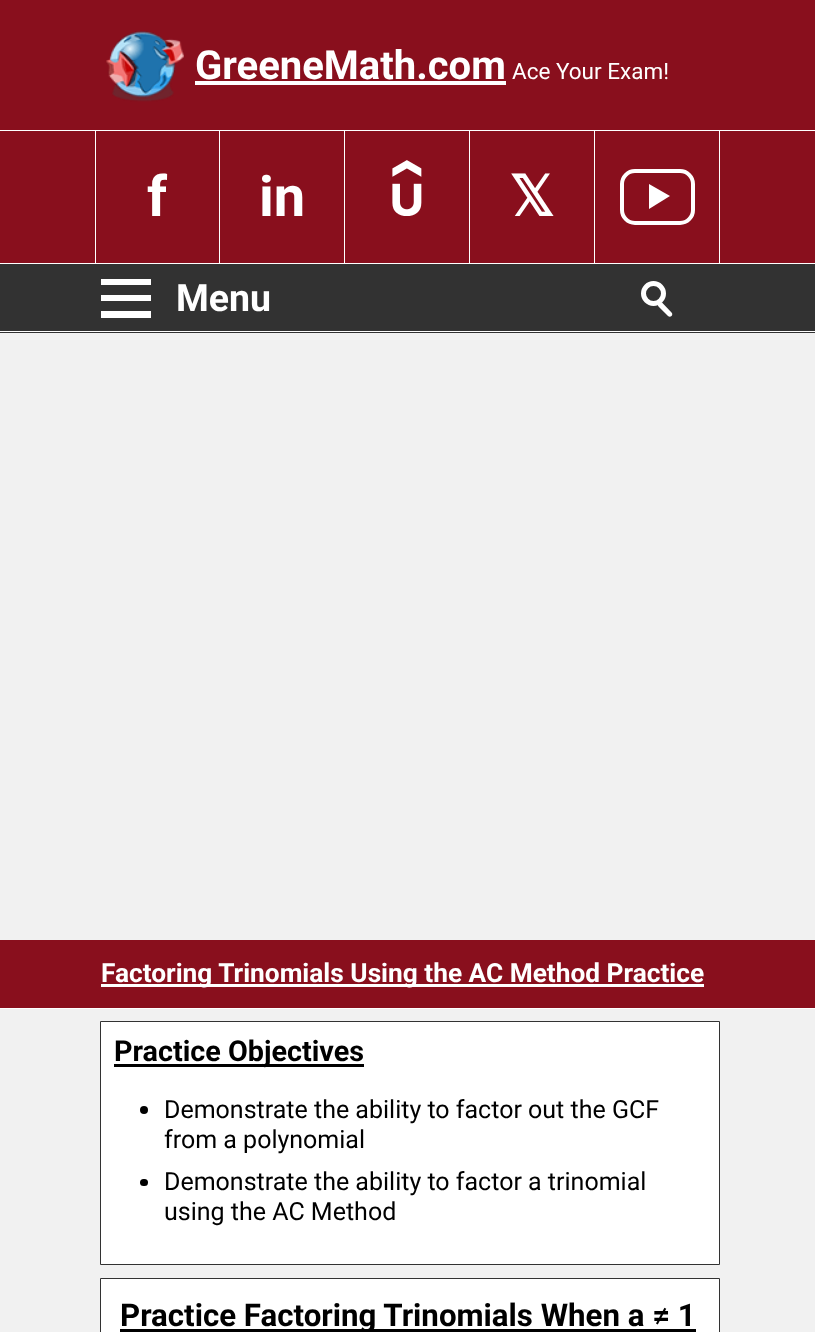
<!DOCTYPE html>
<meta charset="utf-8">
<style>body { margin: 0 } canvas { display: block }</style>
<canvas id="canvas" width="815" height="1332"></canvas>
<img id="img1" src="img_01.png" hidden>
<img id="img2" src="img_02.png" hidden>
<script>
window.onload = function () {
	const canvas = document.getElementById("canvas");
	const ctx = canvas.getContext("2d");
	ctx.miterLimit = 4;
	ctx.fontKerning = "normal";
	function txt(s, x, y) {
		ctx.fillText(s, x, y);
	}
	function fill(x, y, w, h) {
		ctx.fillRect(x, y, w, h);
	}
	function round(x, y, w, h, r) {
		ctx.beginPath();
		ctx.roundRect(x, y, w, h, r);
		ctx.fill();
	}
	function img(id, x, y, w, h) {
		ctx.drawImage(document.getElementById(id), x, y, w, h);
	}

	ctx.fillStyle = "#F1F1F1";
	fill(0, 0, 815, 1332);
	ctx.fillStyle = "#890F1D";
	fill(0, 0, 815, 263);
	ctx.fillStyle = "#FFFFFF";
	fill(0, 130, 815, 1);
	img("img1", 106, 31, 78, 71);
	fill(195, 81, 311, 4);
	fill(219, 131, 1, 132);
	fill(95, 131, 1, 132);
	fill(344, 131, 1, 132);
	fill(469, 131, 1, 132);
	img("img2", 392, 160, 30, 56);
	fill(594, 131, 1, 132);
	fill(719, 131, 1, 132);
	ctx.beginPath();
	ctx.roundRect(622, 171, 71, 52, 13);
	ctx.strokeStyle = "#FFFFFF";
	ctx.lineWidth = 4;
	ctx.stroke();
	ctx.beginPath();
	ctx.moveTo(649, 209);
	ctx.lineTo(649, 184);
	ctx.lineTo(670, 196);
	ctx.closePath();
	ctx.fill();
	ctx.fillStyle = "#323232";
	fill(0, 264, 815, 69);
	ctx.fillStyle = "#FFFFFF";
	fill(0, 263, 815, 1);
	fill(0, 331, 815, 1);
	fill(101, 279, 50, 6);
	fill(101, 295, 50, 6);
	fill(101, 311, 50, 7);
	ctx.beginPath();
	ctx.arc(653.5, 293.5, 10, 0, Math.PI * 2);
	ctx.lineWidth = 5;
	ctx.stroke();
	ctx.beginPath();
	ctx.moveTo(658.5, 302.5);
	ctx.bezierCurveTo(659.5, 302, 661, 302, 662, 302.5);
	ctx.lineTo(671.5, 312.5);
	ctx.bezierCurveTo(672.5, 313.5, 672.5, 315, 671.5, 316);
	ctx.bezierCurveTo(670.5, 317, 669, 317, 668, 316);
	ctx.lineTo(658.5, 306.5);
	ctx.bezierCurveTo(657.5, 305.5, 657.5, 303.5, 658.5, 302.5);
	ctx.closePath();
	ctx.fill();
	ctx.fillStyle = "#890F1D";
	fill(0, 940, 815, 68);
	ctx.fillStyle = "#FFFFFF";
	fill(0, 1008, 815, 1);
	fill(101, 984, 603, 3);
	ctx.beginPath();
	ctx.rect(100.5, 1021.5, 619, 243);
	ctx.fill();
	ctx.strokeStyle = "#323232";
	ctx.lineWidth = 1;
	ctx.stroke();
	ctx.fillStyle = "#000000";
	fill(114, 1064, 250, 3);
	ctx.beginPath();
	ctx.arc(144, 1110, 4, 0, Math.PI * 2);
	ctx.fill();
	round(140, 1179, 8, 7, 3.5);
	ctx.fillStyle = "#FFFFFF";
	ctx.beginPath();
	ctx.rect(100.5, 1278.5, 619, 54);
	ctx.fill();
	ctx.stroke();
	ctx.fillStyle = "#000000";
	fill(120, 1329, 576, 3);
	ctx.font = "bold 40px Roboto";
	ctx.fillStyle = "#FFFFFF";
	txt("GreeneMath.com", 195, 79);
	ctx.font = "22.5px Roboto";
	txt("Ace Your Exam!", 512, 79);
	ctx.font = "bold 56px Roboto";
	txt("f", 147, 216);
	txt("in", 259, 216);
	ctx.font = "bold 56px DejaVu Sans";
	txt("𝕏", 509, 216);
	ctx.font = "bold 37.5px Roboto";
	txt("Menu", 176, 311);
	ctx.font = "bold 26.25px Roboto";
	txt("Factoring Trinomials Using the AC Method Practice", 101, 982);
	ctx.font = "bold 28.75px Roboto";
	ctx.fillStyle = "#000000";
	txt("Practice Objectives", 114, 1061);
	ctx.font = "25px Roboto";
	txt("Demonstrate the ability to factor out the GCF", 164, 1118);
	txt("from a polynomial", 164, 1148);
	txt("Demonstrate the ability to factor a trinomial", 164, 1190);
	txt("using the AC Method", 164, 1220);
	ctx.font = "bold 31.25px Roboto";
	txt("Practice Factoring Trinomials When a ≠ 1", 120, 1326);
};
</script>
